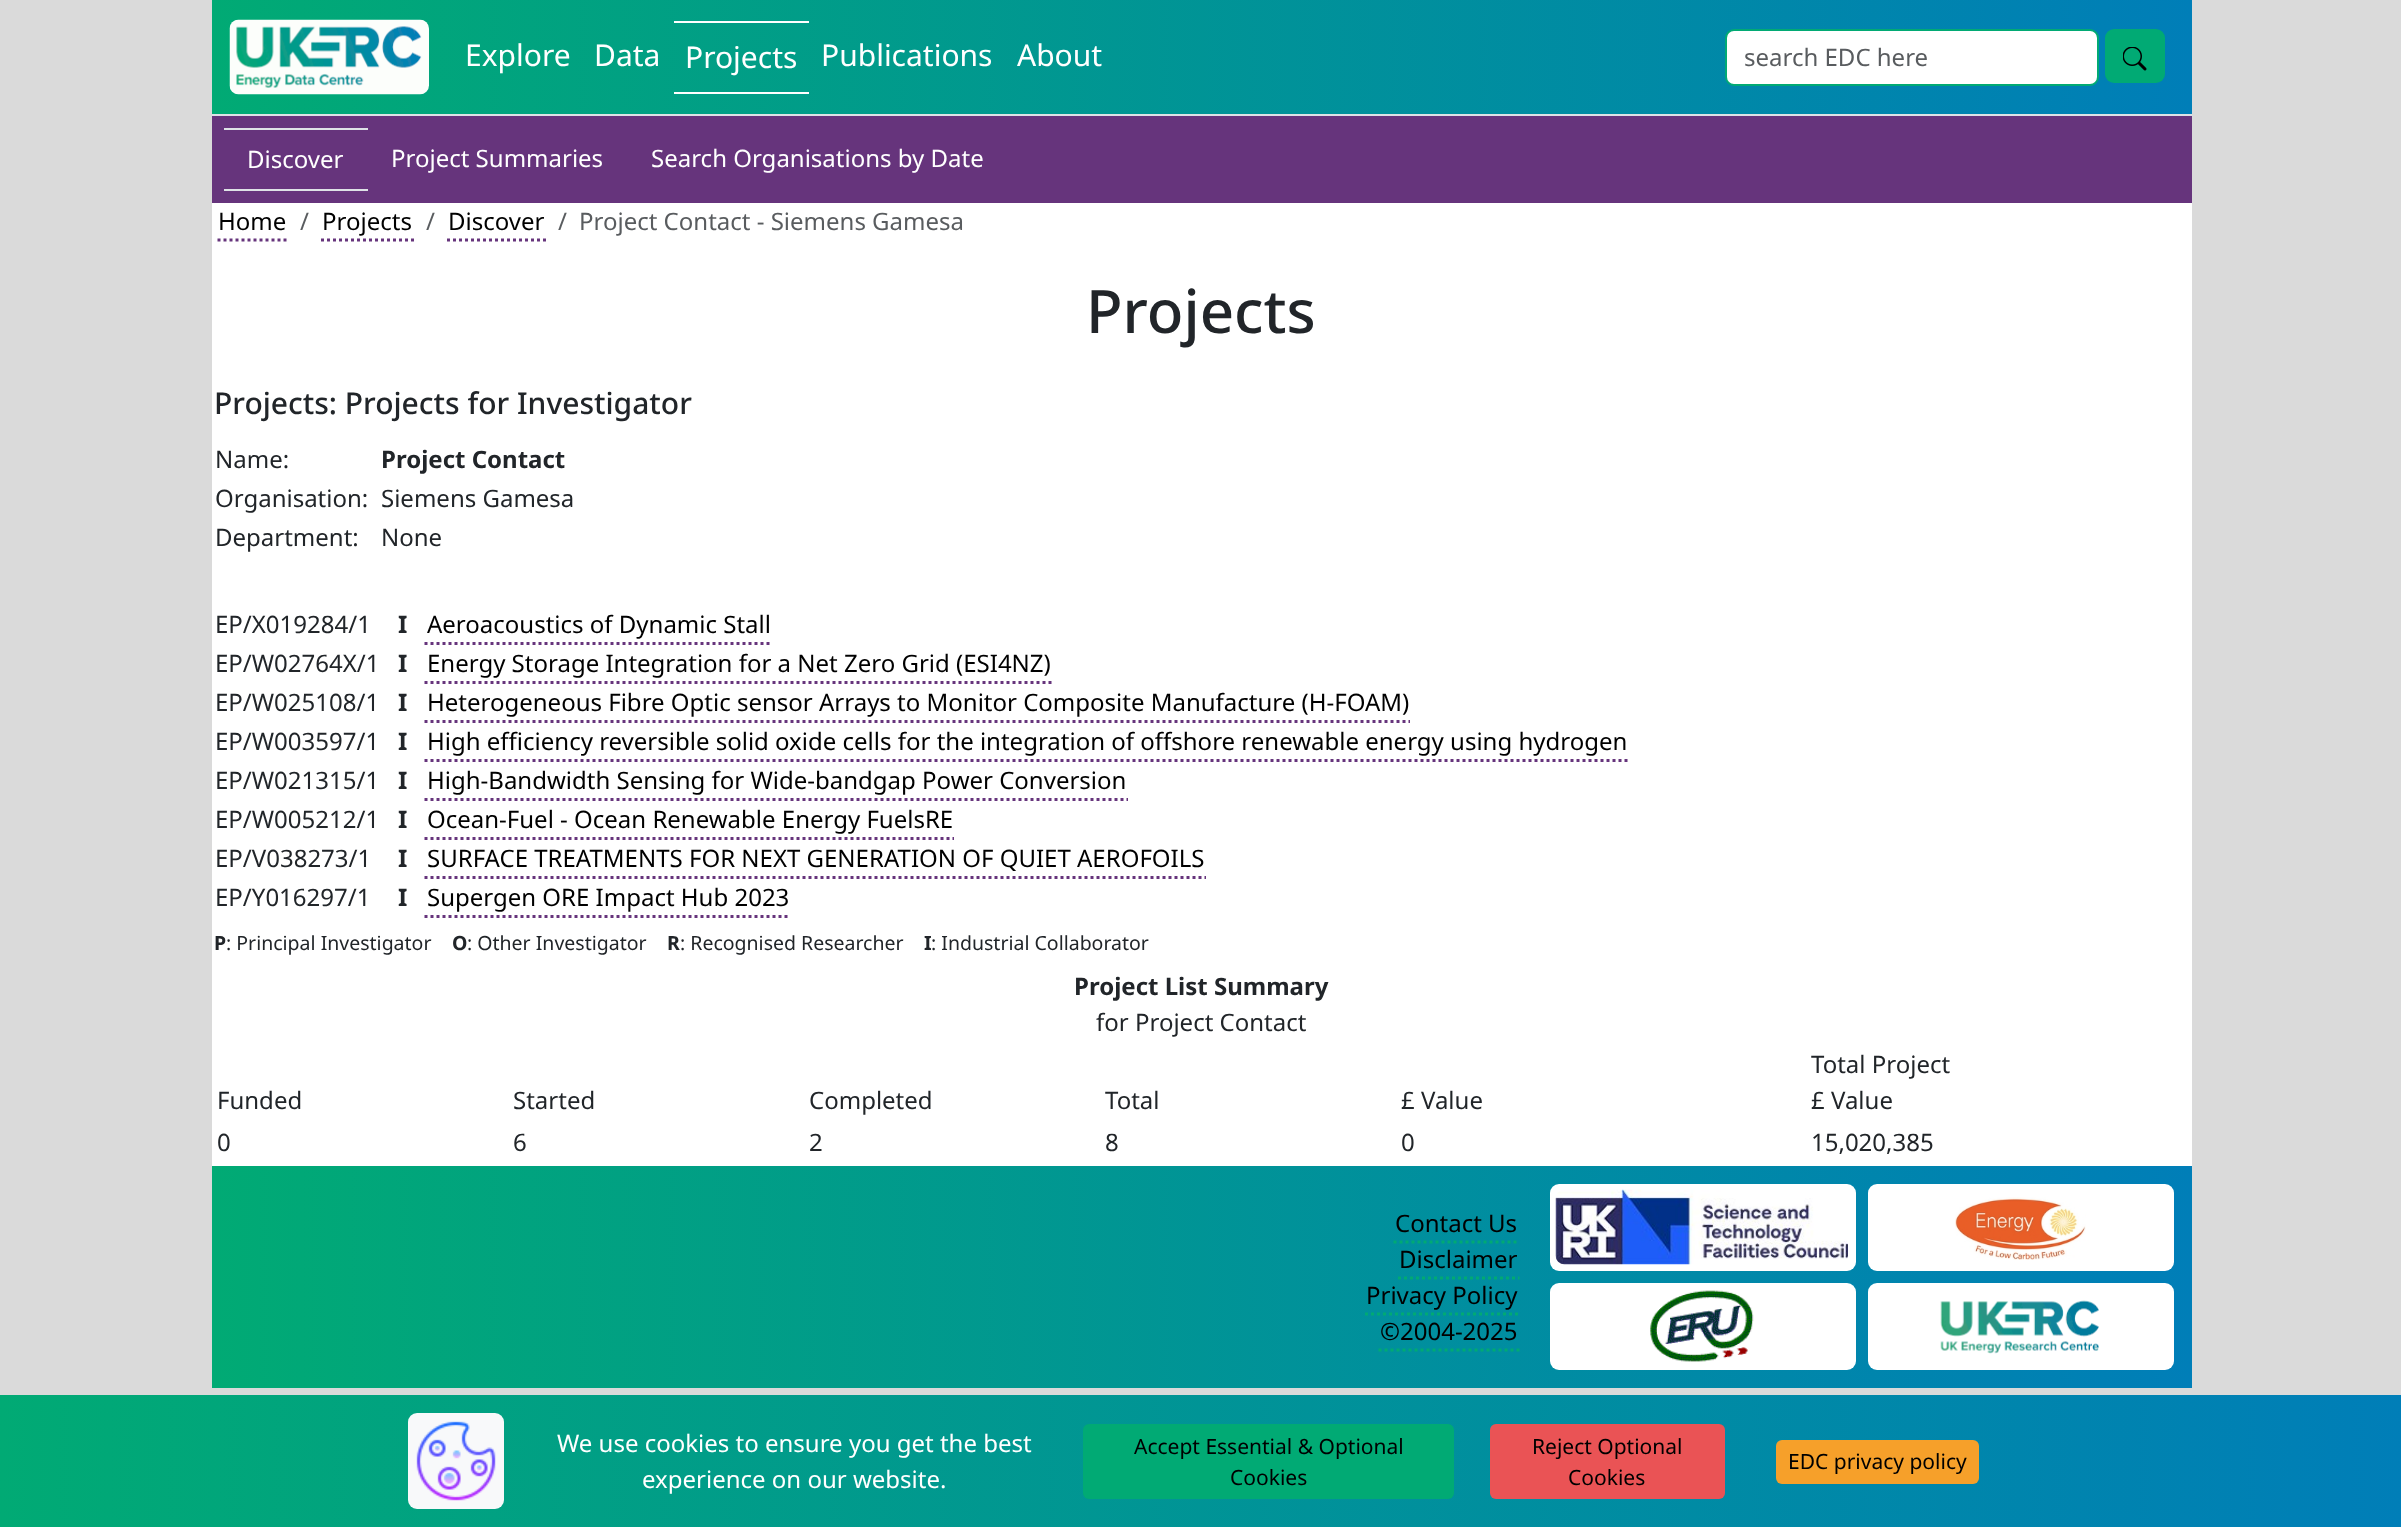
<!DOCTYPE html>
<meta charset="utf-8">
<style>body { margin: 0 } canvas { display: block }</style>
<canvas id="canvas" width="2401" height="1527"></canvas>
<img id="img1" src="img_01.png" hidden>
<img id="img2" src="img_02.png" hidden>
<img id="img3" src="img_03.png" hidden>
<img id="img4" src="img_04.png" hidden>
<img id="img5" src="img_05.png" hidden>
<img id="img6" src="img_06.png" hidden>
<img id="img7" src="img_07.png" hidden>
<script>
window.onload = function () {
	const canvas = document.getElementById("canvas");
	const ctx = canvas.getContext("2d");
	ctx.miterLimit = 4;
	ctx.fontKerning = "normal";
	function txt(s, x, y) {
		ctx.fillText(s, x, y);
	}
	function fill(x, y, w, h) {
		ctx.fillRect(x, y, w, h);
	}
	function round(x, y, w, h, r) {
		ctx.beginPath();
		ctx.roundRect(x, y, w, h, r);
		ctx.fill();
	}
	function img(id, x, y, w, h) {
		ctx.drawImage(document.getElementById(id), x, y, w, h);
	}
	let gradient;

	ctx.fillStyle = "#DADADA";
	fill(0, 0, 2401, 1527);
	ctx.fillStyle = "#FFFFFF";
	fill(212, 203, 1980, 963);
	gradient = ctx.createLinearGradient(212, 57, 2192, 57);
	gradient.addColorStop(0, "#01AA74");
	gradient.addColorStop(1, "#007EB8");
	ctx.fillStyle = gradient;
	fill(212, 0, 1980, 114);
	ctx.fillStyle = "#DEE2E6";
	fill(212, 114, 1980, 2);
	img("img1", 229, 19, 200, 76);
	ctx.fillStyle = "#FFFFFF";
	fill(674, 21, 135, 2);
	fill(674, 92, 135, 2);
	ctx.beginPath();
	ctx.roundRect(1726, 30, 372, 55, 8);
	ctx.fill();
	ctx.strokeStyle = "#01AA74";
	ctx.lineWidth = 2;
	ctx.stroke();
	ctx.fillStyle = "#01AA74";
	round(2105, 29, 60, 54, 9);
	img("img2", 2123, 47, 24, 24);
	ctx.fillStyle = "#66347C";
	fill(212, 116, 1980, 87);
	ctx.fillStyle = "#DEE2E6";
	fill(224, 128, 144, 2);
	fill(224, 189, 144, 2);
	ctx.beginPath();
	ctx.moveTo(217.5, 240);
	ctx.lineTo(288, 240);
	ctx.strokeStyle = "#66347C";
	ctx.lineWidth = 3;
	ctx.setLineDash([3, 3]);
	ctx.stroke();
	ctx.beginPath();
	ctx.moveTo(321, 240);
	ctx.lineTo(414, 240);
	ctx.stroke();
	ctx.beginPath();
	ctx.moveTo(447, 240);
	ctx.lineTo(546, 240);
	ctx.stroke();
	ctx.beginPath();
	ctx.moveTo(424.5, 643.5);
	ctx.lineTo(772.5, 643.5);
	ctx.stroke();
	ctx.beginPath();
	ctx.moveTo(424.5, 682.5);
	ctx.lineTo(1051.5, 682.5);
	ctx.stroke();
	ctx.beginPath();
	ctx.moveTo(424.5, 721.5);
	ctx.lineTo(1410, 721.5);
	ctx.stroke();
	ctx.beginPath();
	ctx.moveTo(424.5, 760.5);
	ctx.lineTo(1629, 760.5);
	ctx.stroke();
	ctx.beginPath();
	ctx.moveTo(424.5, 799.5);
	ctx.lineTo(1128, 799.5);
	ctx.stroke();
	ctx.beginPath();
	ctx.moveTo(424.5, 838.5);
	ctx.lineTo(954, 838.5);
	ctx.stroke();
	ctx.beginPath();
	ctx.moveTo(424.5, 877.5);
	ctx.lineTo(1206, 877.5);
	ctx.stroke();
	ctx.beginPath();
	ctx.moveTo(424.5, 916.5);
	ctx.lineTo(790.5, 916.5);
	ctx.stroke();
	gradient = ctx.createLinearGradient(212, 1277, 2192, 1277);
	gradient.addColorStop(0, "#01AA74");
	gradient.addColorStop(1, "#007EB8");
	ctx.fillStyle = gradient;
	fill(212, 1166, 1980, 222);
	ctx.beginPath();
	ctx.moveTo(1393.5, 1242);
	ctx.lineTo(1519.5, 1242);
	ctx.strokeStyle = "#01AA74";
	ctx.stroke();
	ctx.beginPath();
	ctx.moveTo(1398, 1278);
	ctx.lineTo(1519.5, 1278);
	ctx.stroke();
	ctx.beginPath();
	ctx.moveTo(1365, 1314);
	ctx.lineTo(1519.5, 1314);
	ctx.stroke();
	ctx.beginPath();
	ctx.moveTo(1378.5, 1350);
	ctx.lineTo(1519.5, 1350);
	ctx.stroke();
	ctx.fillStyle = "#FFFFFF";
	round(1550, 1184, 306, 87, 9);
	img("img3", 1555, 1189, 293, 76);
	round(1868, 1184, 306, 87, 9);
	img("img4", 1955, 1197, 131, 63);
	round(1550, 1283, 306, 87, 9);
	img("img5", 1650, 1290, 104, 72);
	round(1868, 1283, 306, 87, 9);
	img("img6", 1940, 1300, 159, 54);
	gradient = ctx.createLinearGradient(0, 1461, 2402, 1461);
	gradient.addColorStop(0, "#01AA74");
	gradient.addColorStop(1, "#007EB8");
	ctx.fillStyle = gradient;
	fill(0, 1395, 2401, 132);
	ctx.fillStyle = "#F8F9FA";
	round(408, 1413, 96, 96, 9);
	img("img7", 416, 1421, 80, 80);
	ctx.fillStyle = "#01AA74";
	round(1083, 1424, 371, 75, 6);
	ctx.fillStyle = "#EA5355";
	round(1490, 1424, 235, 75, 6);
	ctx.fillStyle = "#F6A02A";
	round(1776, 1440, 203, 44, 6);
	ctx.font = "30px Noto Sans";
	ctx.fillStyle = "#FFFFFF";
	txt("Explore", 465, 66);
	txt("Data", 594, 66);
	txt("Projects", 685, 68);
	txt("Publications", 821, 66);
	txt("About", 1017, 66);
	ctx.font = "24px Noto Sans";
	ctx.fillStyle = "#595C5F";
	txt("search EDC here", 1744, 66);
	ctx.fillStyle = "#FFFFFF";
	txt("Discover", 247, 168);
	txt("Project Summaries", 391, 167);
	txt("Search Organisations by Date", 651, 167);
	ctx.fillStyle = "#000000";
	txt("Home", 218, 230);
	ctx.fillStyle = "#595C5F";
	txt("/", 300, 230);
	ctx.fillStyle = "#000000";
	txt("Projects", 322, 230);
	ctx.fillStyle = "#595C5F";
	txt("/", 426, 230);
	ctx.fillStyle = "#000000";
	txt("Discover", 448, 230);
	ctx.fillStyle = "#595C5F";
	txt("/", 558, 230);
	txt("Project Contact - Siemens Gamesa", 579, 230);
	ctx.font = "500 60px Noto Sans";
	ctx.fillStyle = "#212529";
	txt("Projects", 1086, 333);
	ctx.font = "500 30px Noto Sans";
	txt("Projects: Projects for Investigator", 214, 414);
	ctx.font = "24px Noto Sans";
	txt("Name:", 215, 468);
	ctx.font = "bold 24px Noto Sans";
	txt("Project Contact", 381, 468);
	ctx.font = "24px Noto Sans";
	txt("Organisation:", 215, 507);
	txt("Siemens Gamesa", 381, 507);
	txt("Department:", 215, 546);
	txt("None", 381, 546);
	txt("EP/X019284/1", 215, 633);
	ctx.font = "bold 24px Noto Sans";
	txt("I", 398, 633);
	ctx.font = "24px Noto Sans";
	ctx.fillStyle = "#000000";
	txt("Aeroacoustics of Dynamic Stall", 427, 633);
	ctx.fillStyle = "#212529";
	txt("EP/W02764X/1", 215, 672);
	ctx.font = "bold 24px Noto Sans";
	txt("I", 398, 672);
	ctx.font = "24px Noto Sans";
	ctx.fillStyle = "#000000";
	txt("Energy Storage Integration for a Net Zero Grid (ESI4NZ)", 427, 672);
	ctx.fillStyle = "#212529";
	txt("EP/W025108/1", 215, 711);
	ctx.font = "bold 24px Noto Sans";
	txt("I", 398, 711);
	ctx.font = "24px Noto Sans";
	ctx.fillStyle = "#000000";
	txt("Heterogeneous Fibre Optic sensor Arrays to Monitor Composite Manufacture (H-FOAM)", 427, 711);
	ctx.fillStyle = "#212529";
	txt("EP/W003597/1", 215, 750);
	ctx.font = "bold 24px Noto Sans";
	txt("I", 398, 750);
	ctx.font = "24px Noto Sans";
	ctx.fillStyle = "#000000";
	txt("High efficiency reversible solid oxide cells for the integration of offshore renewable energy using hydrogen", 427, 750);
	ctx.fillStyle = "#212529";
	txt("EP/W021315/1", 215, 789);
	ctx.font = "bold 24px Noto Sans";
	txt("I", 398, 789);
	ctx.font = "24px Noto Sans";
	ctx.fillStyle = "#000000";
	txt("High-Bandwidth Sensing for Wide-bandgap Power Conversion", 427, 789);
	ctx.fillStyle = "#212529";
	txt("EP/W005212/1", 215, 828);
	ctx.font = "bold 24px Noto Sans";
	txt("I", 398, 828);
	ctx.font = "24px Noto Sans";
	ctx.fillStyle = "#000000";
	txt("Ocean-Fuel - Ocean Renewable Energy FuelsRE", 427, 828);
	ctx.fillStyle = "#212529";
	txt("EP/V038273/1", 215, 867);
	ctx.font = "bold 24px Noto Sans";
	txt("I", 398, 867);
	ctx.font = "24px Noto Sans";
	ctx.fillStyle = "#000000";
	txt("SURFACE TREATMENTS FOR NEXT GENERATION OF QUIET AEROFOILS", 427, 867);
	ctx.fillStyle = "#212529";
	txt("EP/Y016297/1", 215, 906);
	ctx.font = "bold 24px Noto Sans";
	txt("I", 398, 906);
	ctx.font = "24px Noto Sans";
	ctx.fillStyle = "#000000";
	txt("Supergen ORE Impact Hub 2023", 427, 906);
	ctx.font = "bold 19.5px Noto Sans";
	ctx.fillStyle = "#212529";
	txt("P", 214, 950);
	ctx.font = "19.5px Noto Sans";
	txt(": Principal Investigator", 226, 950);
	ctx.font = "bold 19.5px Noto Sans";
	txt("O", 452, 950);
	ctx.font = "19.5px Noto Sans";
	txt(": Other Investigator", 467, 950);
	ctx.font = "bold 19.5px Noto Sans";
	txt("R", 667, 950);
	ctx.font = "19.5px Noto Sans";
	txt(": Recognised Researcher", 680, 950);
	ctx.font = "bold 19.5px Noto Sans";
	txt("I", 924, 950);
	ctx.font = "19.5px Noto Sans";
	txt(": Industrial Collaborator", 931, 950);
	ctx.font = "bold 24px Noto Sans";
	txt("Project List Summary", 1074, 995);
	ctx.font = "24px Noto Sans";
	txt("for Project Contact", 1096, 1031);
	txt("Funded", 217, 1109);
	txt("Started", 513, 1109);
	txt("Completed", 809, 1109);
	txt("Total", 1105, 1109);
	txt("£ Value", 1401, 1109);
	txt("Total Project", 1811, 1073);
	txt("£ Value", 1811, 1109);
	txt("0", 217, 1151);
	txt("6", 513, 1151);
	txt("2", 809, 1151);
	txt("8", 1105, 1151);
	txt("0", 1401, 1151);
	txt("15,020,385", 1811, 1151);
	ctx.fillStyle = "#000000";
	txt("Contact Us", 1395, 1232);
	txt("Disclaimer", 1399, 1268);
	txt("Privacy Policy", 1366, 1304);
	txt("©2004-2025", 1380, 1340);
	ctx.fillStyle = "#FFFFFF";
	txt("We use cookies to ensure you get the best", 557, 1452);
	txt("experience on our website.", 642, 1488);
	ctx.font = "21px Noto Sans";
	ctx.fillStyle = "#000000";
	txt("Accept Essential & Optional", 1134, 1454);
	txt("Cookies", 1230, 1485);
	txt("Reject Optional", 1532, 1454);
	txt("Cookies", 1568, 1485);
	txt("EDC privacy policy", 1788, 1469);
};
</script>
